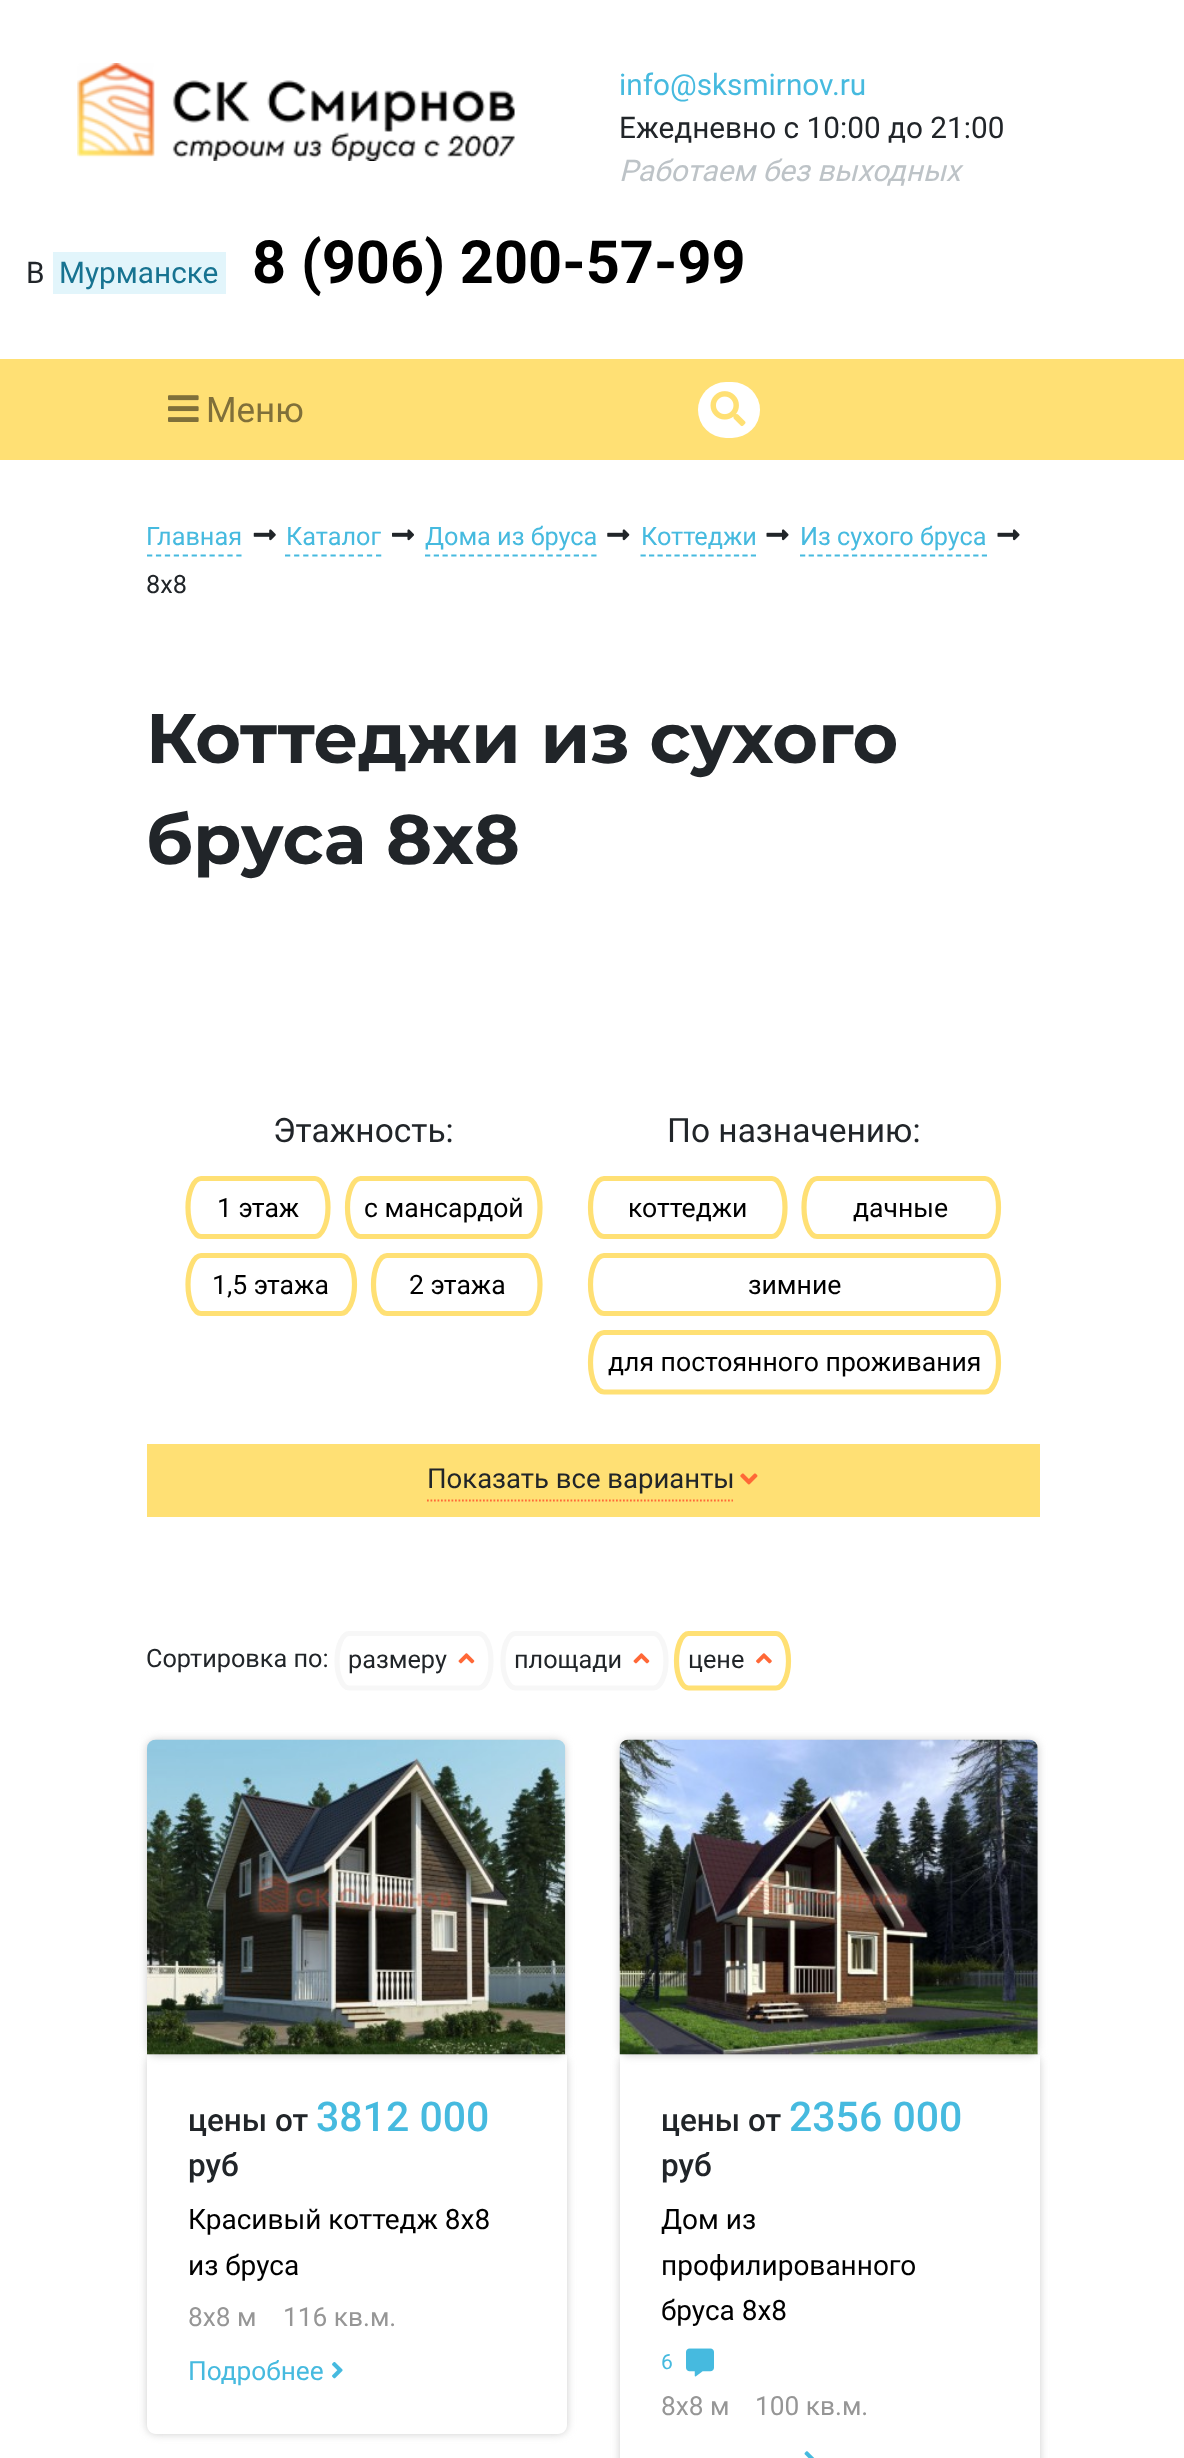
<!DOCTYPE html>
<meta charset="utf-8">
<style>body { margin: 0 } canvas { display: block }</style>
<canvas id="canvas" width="1184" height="2458"></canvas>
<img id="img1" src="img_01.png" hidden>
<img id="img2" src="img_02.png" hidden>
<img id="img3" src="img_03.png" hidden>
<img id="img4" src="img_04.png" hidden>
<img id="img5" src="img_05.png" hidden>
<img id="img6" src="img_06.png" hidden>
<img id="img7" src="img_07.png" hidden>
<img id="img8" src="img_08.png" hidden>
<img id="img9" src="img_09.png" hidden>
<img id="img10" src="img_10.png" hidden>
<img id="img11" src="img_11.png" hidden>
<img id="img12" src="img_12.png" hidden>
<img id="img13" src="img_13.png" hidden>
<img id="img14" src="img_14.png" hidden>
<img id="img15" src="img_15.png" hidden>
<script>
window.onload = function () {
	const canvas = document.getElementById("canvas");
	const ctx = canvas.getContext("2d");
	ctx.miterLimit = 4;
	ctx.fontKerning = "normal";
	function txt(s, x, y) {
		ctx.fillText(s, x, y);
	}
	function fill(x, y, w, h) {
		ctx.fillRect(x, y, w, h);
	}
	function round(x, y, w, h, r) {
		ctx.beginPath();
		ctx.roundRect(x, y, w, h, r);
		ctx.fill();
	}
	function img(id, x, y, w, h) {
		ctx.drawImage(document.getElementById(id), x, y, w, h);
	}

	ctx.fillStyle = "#FFFFFF";
	fill(0, 0, 1184, 2458);
	img("img1", 77, 63, 438, 98);
	ctx.fillStyle = "#E2F5FB";
	fill(53, 252, 173, 42);
	ctx.fillStyle = "#FFE074";
	fill(0, 359, 1184, 101);
	img("img2", 168, 395, 31, 27);
	ctx.fillStyle = "#FFFFFF";
	round(698, 382, 62, 56, 28);
	img("img3", 710, 391, 36, 36);
	ctx.beginPath();
	ctx.moveTo(147, 555.5);
	ctx.lineTo(241.5, 555.5);
	ctx.strokeStyle = "#46BADF";
	ctx.lineWidth = 1.8;
	ctx.setLineDash([5.25, 3.68]);
	ctx.stroke();
	img("img4", 253, 529, 23, 12);
	ctx.beginPath();
	ctx.moveTo(285, 555.5);
	ctx.lineTo(381.5, 555.5);
	ctx.setLineDash([5.25, 3.85]);
	ctx.stroke();
	img("img5", 392, 529, 22, 12);
	ctx.beginPath();
	ctx.moveTo(425, 555.5);
	ctx.lineTo(597, 555.5);
	ctx.setLineDash([5.25, 3.5]);
	ctx.stroke();
	img("img6", 607, 529, 23, 12);
	ctx.beginPath();
	ctx.moveTo(640.5, 555.5);
	ctx.lineTo(756, 555.5);
	ctx.setLineDash([5.25, 3.24]);
	ctx.stroke();
	img("img7", 766, 529, 23, 12);
	ctx.beginPath();
	ctx.moveTo(800, 555.5);
	ctx.lineTo(987, 555.5);
	ctx.setLineDash([5.25, 3.41]);
	ctx.stroke();
	img("img7", 997, 529, 23, 12);
	ctx.beginPath();
	ctx.moveTo(201, 1178.5);
	ctx.lineTo(315, 1178.5);
	ctx.bezierCurveTo(322, 1178.5, 328, 1191.5, 328, 1207.5);
	ctx.bezierCurveTo(328, 1223.5, 322, 1236.5, 315, 1236.5);
	ctx.lineTo(201, 1236.5);
	ctx.bezierCurveTo(194, 1236.5, 188, 1223.5, 188, 1207.5);
	ctx.bezierCurveTo(188, 1191.5, 194, 1178.5, 201, 1178.5);
	ctx.closePath();
	ctx.strokeStyle = "#FFE074";
	ctx.lineWidth = 5.2;
	ctx.setLineDash([]);
	ctx.stroke();
	ctx.beginPath();
	ctx.moveTo(360.5, 1178.5);
	ctx.lineTo(527, 1178.5);
	ctx.bezierCurveTo(534, 1178.5, 540, 1191.5, 540, 1207.5);
	ctx.bezierCurveTo(540, 1223.5, 534, 1236.5, 527, 1236.5);
	ctx.lineTo(360.5, 1236.5);
	ctx.bezierCurveTo(353.5, 1236.5, 347.5, 1223.5, 347.5, 1207.5);
	ctx.bezierCurveTo(347.5, 1191.5, 353.5, 1178.5, 360.5, 1178.5);
	ctx.closePath();
	ctx.stroke();
	ctx.beginPath();
	ctx.moveTo(201, 1255.5);
	ctx.lineTo(341, 1255.5);
	ctx.bezierCurveTo(348.5, 1255.5, 354.5, 1268.5, 354.5, 1284.5);
	ctx.bezierCurveTo(354.5, 1300.5, 348.5, 1313.5, 341, 1313.5);
	ctx.lineTo(201, 1313.5);
	ctx.bezierCurveTo(194, 1313.5, 188, 1300.5, 188, 1284.5);
	ctx.bezierCurveTo(188, 1268.5, 194, 1255.5, 201, 1255.5);
	ctx.closePath();
	ctx.stroke();
	ctx.beginPath();
	ctx.moveTo(387, 1255.5);
	ctx.lineTo(527, 1255.5);
	ctx.bezierCurveTo(534, 1255.5, 540, 1268.5, 540, 1284.5);
	ctx.bezierCurveTo(540, 1300.5, 534, 1313.5, 527, 1313.5);
	ctx.lineTo(387, 1313.5);
	ctx.bezierCurveTo(379.5, 1313.5, 373.5, 1300.5, 373.5, 1284.5);
	ctx.bezierCurveTo(373.5, 1268.5, 379.5, 1255.5, 387, 1255.5);
	ctx.closePath();
	ctx.stroke();
	ctx.beginPath();
	ctx.moveTo(604, 1178.5);
	ctx.lineTo(772, 1178.5);
	ctx.bezierCurveTo(779, 1178.5, 785, 1191.5, 785, 1207.5);
	ctx.bezierCurveTo(785, 1223.5, 779, 1236.5, 772, 1236.5);
	ctx.lineTo(604, 1236.5);
	ctx.bezierCurveTo(596.5, 1236.5, 590.5, 1223.5, 590.5, 1207.5);
	ctx.bezierCurveTo(590.5, 1191.5, 596.5, 1178.5, 604, 1178.5);
	ctx.closePath();
	ctx.stroke();
	ctx.beginPath();
	ctx.moveTo(817, 1178.5);
	ctx.lineTo(985, 1178.5);
	ctx.bezierCurveTo(992.5, 1178.5, 998.5, 1191.5, 998.5, 1207.5);
	ctx.bezierCurveTo(998.5, 1223.5, 992.5, 1236.5, 985, 1236.5);
	ctx.lineTo(817, 1236.5);
	ctx.bezierCurveTo(810, 1236.5, 804, 1223.5, 804, 1207.5);
	ctx.bezierCurveTo(804, 1191.5, 810, 1178.5, 817, 1178.5);
	ctx.closePath();
	ctx.stroke();
	ctx.beginPath();
	ctx.moveTo(604, 1255.5);
	ctx.lineTo(985, 1255.5);
	ctx.bezierCurveTo(992.5, 1255.5, 998.5, 1268.5, 998.5, 1284.5);
	ctx.bezierCurveTo(998.5, 1300.5, 992.5, 1313.5, 985, 1313.5);
	ctx.lineTo(604, 1313.5);
	ctx.bezierCurveTo(596.5, 1313.5, 590.5, 1300.5, 590.5, 1284.5);
	ctx.bezierCurveTo(590.5, 1268.5, 596.5, 1255.5, 604, 1255.5);
	ctx.closePath();
	ctx.stroke();
	ctx.beginPath();
	ctx.moveTo(604, 1332.5);
	ctx.lineTo(985, 1332.5);
	ctx.bezierCurveTo(992.5, 1332.5, 998.5, 1346, 998.5, 1362.5);
	ctx.bezierCurveTo(998.5, 1379, 992.5, 1392, 985, 1392);
	ctx.lineTo(604, 1392);
	ctx.bezierCurveTo(596.5, 1392, 590.5, 1379, 590.5, 1362.5);
	ctx.bezierCurveTo(590.5, 1346, 596.5, 1332.5, 604, 1332.5);
	ctx.closePath();
	ctx.stroke();
	ctx.fillStyle = "#FFE074";
	fill(147, 1444, 893, 73);
	ctx.beginPath();
	ctx.moveTo(427, 1500.5);
	ctx.lineTo(733, 1500.5);
	ctx.strokeStyle = "#FF6837";
	ctx.lineWidth = 1.8;
	ctx.setLineDash([1.75, 1.75]);
	ctx.stroke();
	img("img8", 740, 1473, 18, 12);
	ctx.beginPath();
	ctx.moveTo(349, 1633.5);
	ctx.lineTo(478.5, 1633.5);
	ctx.bezierCurveTo(485.5, 1633.5, 491, 1646, 491, 1661);
	ctx.bezierCurveTo(491, 1675.5, 485.5, 1688, 478.5, 1688);
	ctx.lineTo(349, 1688);
	ctx.bezierCurveTo(342.5, 1688, 337, 1675.5, 337, 1661);
	ctx.bezierCurveTo(337, 1646, 342.5, 1633.5, 349, 1633.5);
	ctx.closePath();
	ctx.strokeStyle = "#F7F7F7";
	ctx.lineWidth = 5.2;
	ctx.setLineDash([]);
	ctx.stroke();
	img("img9", 458, 1653, 17, 11);
	ctx.beginPath();
	ctx.moveTo(515.5, 1633.5);
	ctx.lineTo(653.5, 1633.5);
	ctx.bezierCurveTo(660.5, 1633.5, 666, 1646, 666, 1661);
	ctx.bezierCurveTo(666, 1675.5, 660.5, 1688, 653.5, 1688);
	ctx.lineTo(515.5, 1688);
	ctx.bezierCurveTo(508.5, 1688, 503, 1675.5, 503, 1661);
	ctx.bezierCurveTo(503, 1646, 508.5, 1633.5, 515.5, 1633.5);
	ctx.closePath();
	ctx.stroke();
	img("img9", 633, 1653, 17, 11);
	ctx.beginPath();
	ctx.moveTo(688.5, 1633.5);
	ctx.lineTo(776, 1633.5);
	ctx.bezierCurveTo(783, 1633.5, 788.5, 1646, 788.5, 1661);
	ctx.bezierCurveTo(788.5, 1675.5, 783, 1688, 776, 1688);
	ctx.lineTo(688.5, 1688);
	ctx.bezierCurveTo(682, 1688, 676.5, 1675.5, 676.5, 1661);
	ctx.bezierCurveTo(676.5, 1646, 682, 1633.5, 688.5, 1633.5);
	ctx.closePath();
	ctx.strokeStyle = "#FFE074";
	ctx.stroke();
	img("img10", 756, 1653, 16, 11);
	ctx.fillStyle = "#CCCCCC";
	ctx.filter = "blur(4.5px)";
	ctx.beginPath();
	ctx.roundRect(147, 1740, 418, 315, 9);
	ctx.fill();
	ctx.filter = "none";
	ctx.save();
	ctx.beginPath();
	ctx.moveTo(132, 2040);
	ctx.lineTo(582, 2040);
	ctx.lineTo(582, 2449);
	ctx.lineTo(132, 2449);
	ctx.closePath();
	ctx.moveTo(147, 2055);
	ctx.lineTo(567, 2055);
	ctx.lineTo(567, 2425);
	ctx.bezierCurveTo(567, 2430, 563, 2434, 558, 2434);
	ctx.lineTo(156, 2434);
	ctx.bezierCurveTo(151, 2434, 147, 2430, 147, 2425);
	ctx.closePath();
	ctx.clip("evenodd");
	ctx.filter = "blur(4.5px)";
	ctx.beginPath();
	ctx.roundRect(147, 2055, 420, 379, 9);
	ctx.fill();
	ctx.filter = "none";
	ctx.restore();
	img("img11", 147, 1739, 419, 316);
	img("img12", 332, 2362, 11, 17);
	ctx.filter = "blur(4.5px)";
	ctx.beginPath();
	ctx.roundRect(620, 1740, 418, 315, 9);
	ctx.fill();
	ctx.filter = "none";
	ctx.save();
	ctx.beginPath();
	ctx.moveTo(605, 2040);
	ctx.lineTo(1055, 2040);
	ctx.lineTo(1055, 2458);
	ctx.lineTo(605, 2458);
	ctx.closePath();
	ctx.moveTo(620, 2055);
	ctx.lineTo(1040, 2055);
	ctx.lineTo(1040, 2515);
	ctx.bezierCurveTo(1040, 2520, 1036, 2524, 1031, 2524);
	ctx.lineTo(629, 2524);
	ctx.bezierCurveTo(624, 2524, 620, 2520, 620, 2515);
	ctx.closePath();
	ctx.clip("evenodd");
	ctx.filter = "blur(4.5px)";
	ctx.beginPath();
	ctx.roundRect(620, 2055, 420, 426, 9);
	ctx.fill();
	ctx.filter = "none";
	ctx.restore();
	img("img13", 619, 1739, 419, 316);
	img("img14", 686, 2348, 28, 29);
	img("img15", 804, 2451, 11, 7);
	ctx.font = "29.75px Roboto";
	ctx.fillStyle = "#46BADF";
	txt("info@sksmirnov.ru", 619, 95);
	ctx.fillStyle = "#212529";
	txt("Ежедневно с 10:00 до 21:00", 619, 138);
	ctx.font = "italic 29.75px Roboto";
	ctx.fillStyle = "#BDC3C7";
	txt("Работаем без выходных", 619, 181);
	ctx.font = "29.75px Roboto";
	ctx.fillStyle = "#212529";
	txt("В", 26, 283);
	ctx.fillStyle = "#177391";
	txt("Мурманске", 59, 283);
	ctx.font = "bold 59.5px Roboto";
	ctx.fillStyle = "#000000";
	txt("8 (906) 200-57-99", 252, 283);
	ctx.font = "35px Roboto";
	ctx.fillStyle = "#80703A";
	txt("Меню", 206, 422);
	ctx.font = "25.25px Roboto";
	ctx.fillStyle = "#46BADF";
	txt("Главная", 146, 545);
	txt("Каталог", 286, 545);
	txt("Дома из бруса", 425, 545);
	txt("Коттеджи", 641, 545);
	txt("Из сухого бруса", 800, 545);
	ctx.fillStyle = "#212529";
	txt("8х8", 146, 593);
	ctx.font = "bold 70px Montserrat";
	txt("Коттеджи из сухого", 146, 763);
	txt("бруса 8х8", 146, 864);
	ctx.font = "33.5px Roboto";
	txt("Этажность:", 273, 1142);
	ctx.font = "26.6px Roboto";
	ctx.fillStyle = "#000000";
	txt("1 этаж", 217, 1217);
	txt("с мансардой", 364, 1217);
	txt("1,5 этажа", 212, 1294);
	txt("2 этажа", 409, 1294);
	ctx.font = "33.5px Roboto";
	ctx.fillStyle = "#212529";
	txt("По назначению:", 667, 1142);
	ctx.font = "26.6px Roboto";
	ctx.fillStyle = "#000000";
	txt("коттеджи", 628, 1217);
	txt("дачные", 853, 1217);
	txt("зимние", 748, 1294);
	txt("для постоянного проживания", 608, 1371);
	ctx.font = "27.5px Roboto";
	ctx.fillStyle = "#212529";
	txt("Показать все варианты", 427, 1488);
	ctx.font = "25.25px Roboto";
	txt("Сортировка по:", 146, 1667);
	txt("размеру", 348, 1668);
	txt("площади", 514, 1668);
	txt("цене", 688, 1668);
	ctx.font = "500 31.5px Roboto";
	txt("цены от", 188, 2131);
	ctx.font = "500 41px Roboto";
	ctx.fillStyle = "#46BADF";
	txt("3812 000", 316, 2131);
	ctx.font = "500 31.5px Roboto";
	ctx.fillStyle = "#212529";
	txt("руб", 188, 2176);
	ctx.font = "28px Roboto";
	ctx.fillStyle = "#000000";
	txt("Красивый коттедж 8х8", 188, 2229);
	txt("из бруса", 188, 2275);
	ctx.font = "26.25px Roboto";
	ctx.fillStyle = "#969696";
	txt("8х8 м", 188, 2326);
	txt("116 кв.м.", 283, 2326);
	ctx.fillStyle = "#46BADF";
	txt("Подробнее", 188, 2380);
	ctx.font = "500 31.5px Roboto";
	ctx.fillStyle = "#212529";
	txt("цены от", 661, 2131);
	ctx.font = "500 41px Roboto";
	ctx.fillStyle = "#46BADF";
	txt("2356 000", 789, 2131);
	ctx.font = "500 31.5px Roboto";
	ctx.fillStyle = "#212529";
	txt("руб", 661, 2176);
	ctx.font = "28px Roboto";
	ctx.fillStyle = "#000000";
	txt("Дом из", 661, 2229);
	txt("профилированного", 661, 2275);
	txt("бруса 8х8", 661, 2320);
	ctx.font = "21px Roboto";
	ctx.fillStyle = "#46BADF";
	txt("6", 661, 2369);
	ctx.font = "26.25px Roboto";
	ctx.fillStyle = "#969696";
	txt("8х8 м", 661, 2415);
	txt("100 кв.м.", 755, 2415);
};
</script>
